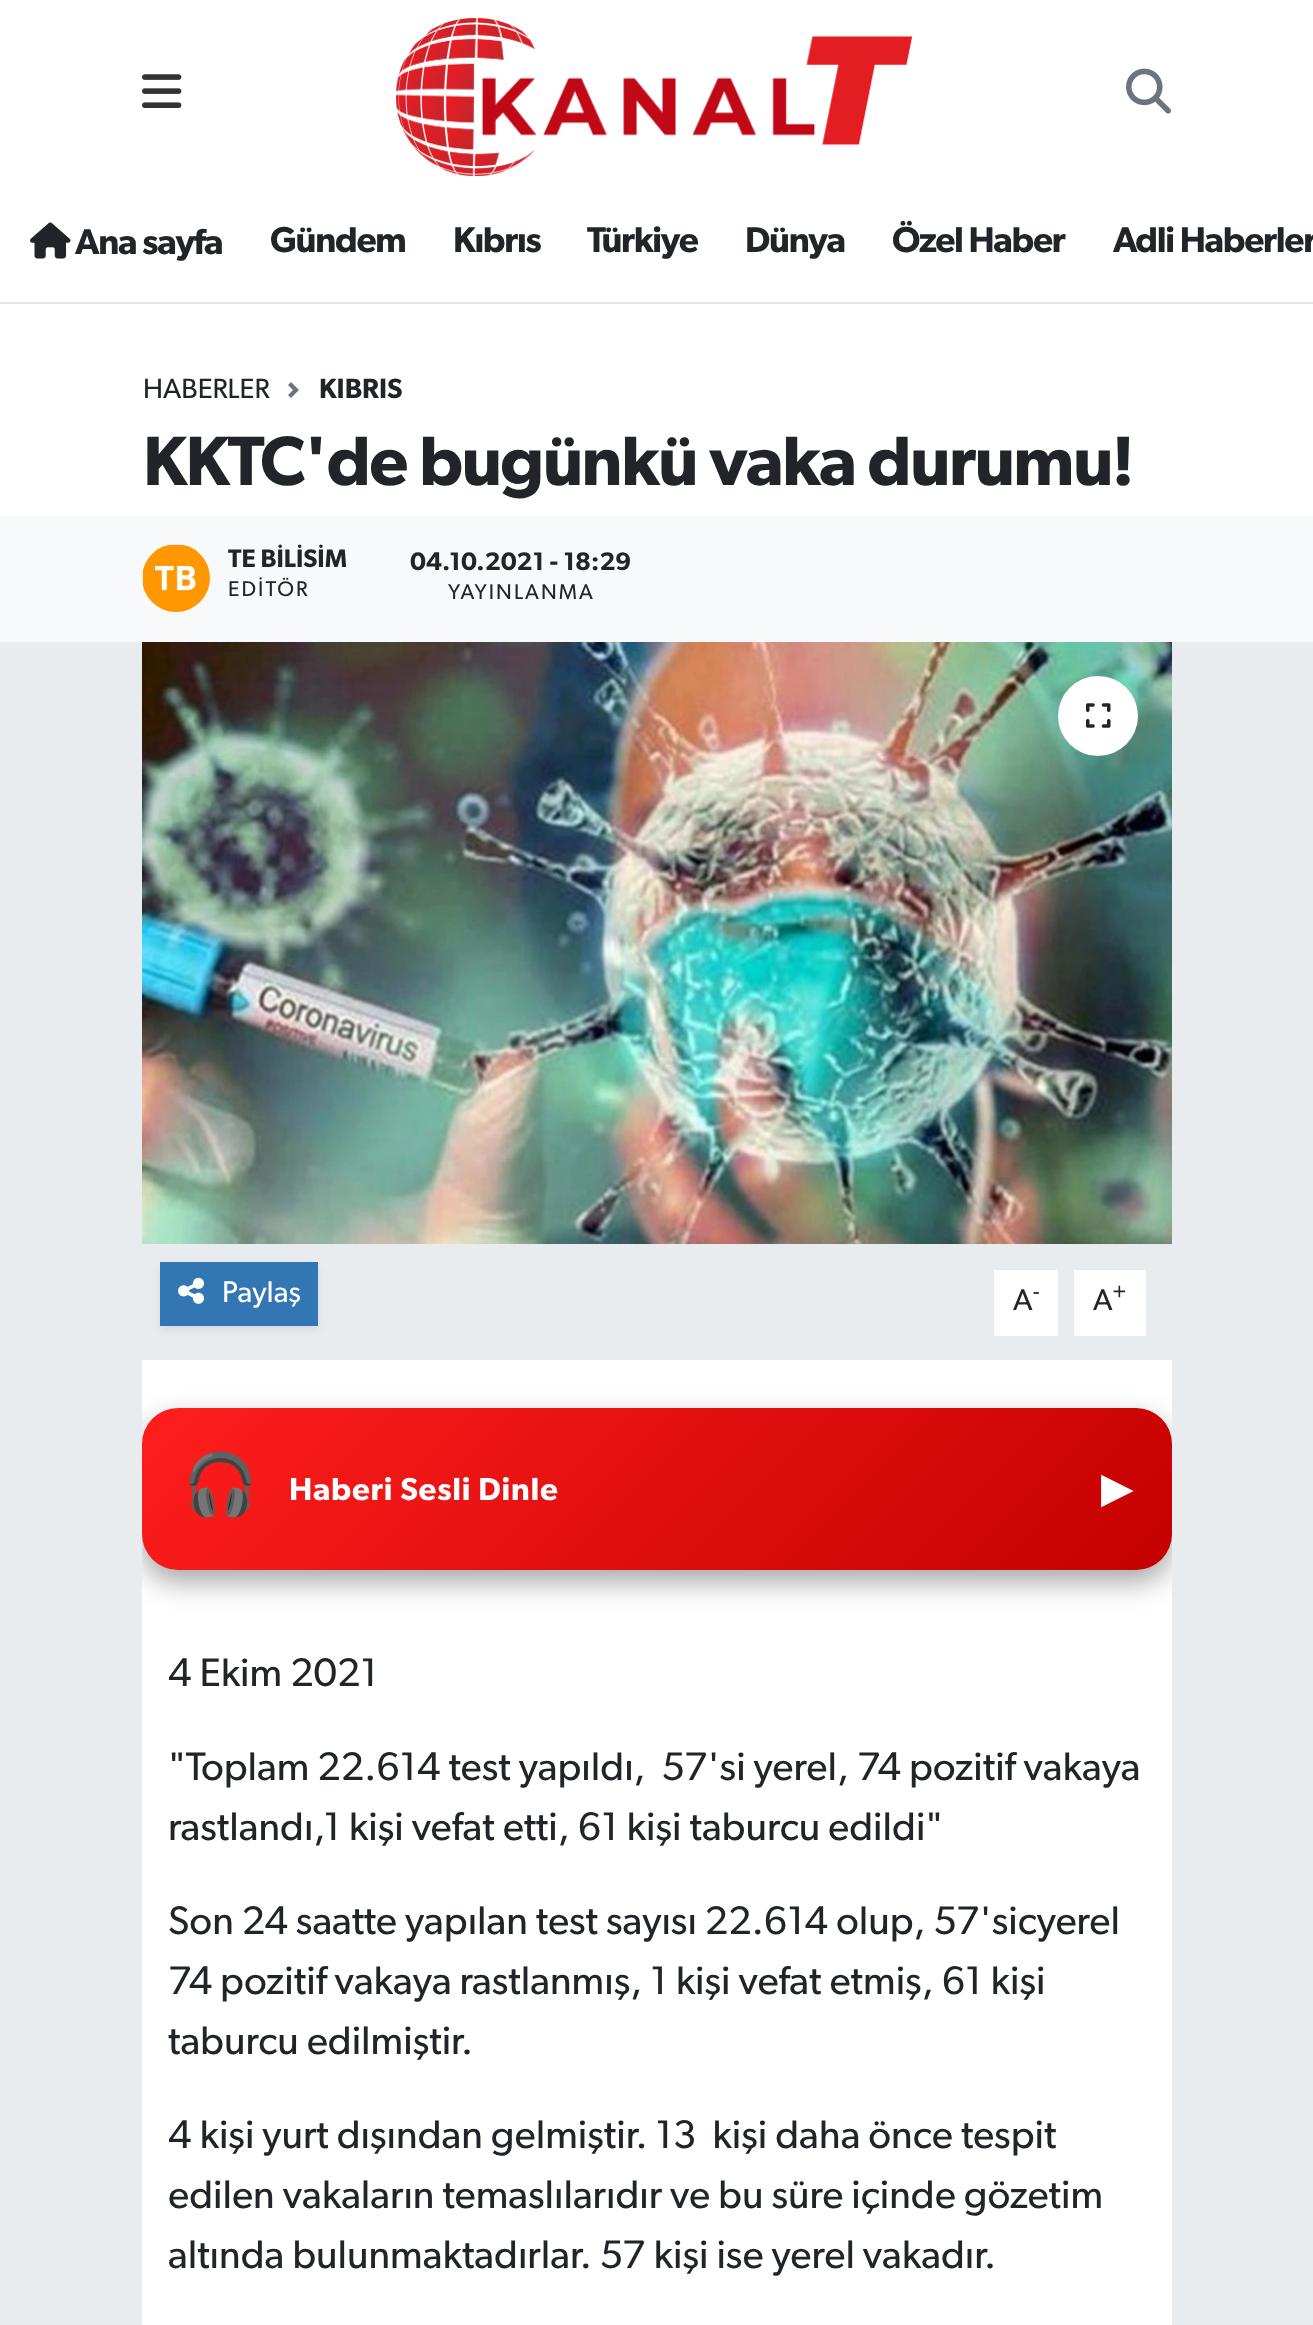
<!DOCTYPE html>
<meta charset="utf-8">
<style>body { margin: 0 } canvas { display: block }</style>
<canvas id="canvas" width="1313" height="2325"></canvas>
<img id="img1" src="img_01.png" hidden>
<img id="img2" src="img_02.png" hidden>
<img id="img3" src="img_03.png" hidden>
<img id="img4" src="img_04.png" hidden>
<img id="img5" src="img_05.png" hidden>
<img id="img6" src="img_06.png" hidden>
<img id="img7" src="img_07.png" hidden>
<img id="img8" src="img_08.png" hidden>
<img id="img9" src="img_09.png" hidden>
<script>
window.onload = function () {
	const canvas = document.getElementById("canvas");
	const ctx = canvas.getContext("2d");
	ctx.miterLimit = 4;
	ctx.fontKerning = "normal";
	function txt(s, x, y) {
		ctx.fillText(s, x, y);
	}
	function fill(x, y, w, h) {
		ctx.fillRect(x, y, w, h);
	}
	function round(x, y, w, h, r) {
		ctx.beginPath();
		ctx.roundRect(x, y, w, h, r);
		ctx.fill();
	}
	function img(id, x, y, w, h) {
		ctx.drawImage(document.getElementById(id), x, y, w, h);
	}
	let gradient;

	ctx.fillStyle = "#E9ECEF";
	fill(0, 0, 1313, 2325);
	ctx.fillStyle = "#FFFFFF";
	fill(0, 0, 1313, 302);
	img("img1", 142, 74, 40, 34);
	img("img2", 396, 18, 516, 158);
	img("img3", 1126, 68, 45, 46);
	ctx.fillStyle = "#E6E6E6";
	fill(0, 302, 1313, 2);
	img("img4", 30, 222, 41, 37);
	ctx.fillStyle = "#FFFFFF";
	fill(0, 304, 1313, 212);
	img("img5", 288, 382, 11, 16);
	ctx.fillStyle = "#F8F9FA";
	fill(0, 516, 1313, 126);
	img("img6", 142, 544, 68, 68);
	img("img7", 142, 642, 1030, 602);
	ctx.fillStyle = "#FFFFFF";
	ctx.beginPath();
	ctx.arc(1098, 716, 40, 0, Math.PI * 2);
	ctx.fill();
	img("img8", 1086, 703, 25, 25);
	ctx.fillStyle = "rgba(0, 0, 0, 0.07)";
	ctx.filter = "blur(4px)";
	ctx.beginPath();
	ctx.rect(160, 1266, 158, 64);
	ctx.fill();
	ctx.filter = "none";
	ctx.fillStyle = "#3276B3";
	fill(160, 1262, 158, 64);
	img("img9", 178, 1277, 26, 27);
	ctx.fillStyle = "#FFFFFF";
	fill(994, 1270, 64, 66);
	fill(1074, 1270, 72, 66);
	fill(142, 1360, 1030, 965);
	ctx.save();
	ctx.beginPath();
	ctx.rect(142, 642, 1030, 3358);
	ctx.clip();
	ctx.fillStyle = "rgba(0, 0, 0, 0.35)";
	ctx.filter = "blur(14px)";
	ctx.beginPath();
	ctx.roundRect(142, 1420, 1030, 162, 36);
	ctx.fill();
	ctx.filter = "none";
	ctx.restore();
	gradient = ctx.createLinearGradient(359, 1191, 955, 1787);
	gradient.addColorStop(0, "#FF1E1E");
	gradient.addColorStop(1, "#C40000");
	ctx.fillStyle = gradient;
	round(142, 1408, 1030, 162, 36);
	ctx.letterSpacing = "-1.25px";
	ctx.font = "600 36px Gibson";
	ctx.fillStyle = "#212529";
	txt("Ana sayfa", 75, 254);
	txt("Gündem", 270, 252);
	txt("Kıbrıs", 453, 252);
	txt("Türkiye", 587, 252);
	txt("Dünya", 745, 252);
	txt("Özel Haber", 892, 252);
	txt("Adli Haberler", 1113, 252);
	ctx.letterSpacing = "0px";
	ctx.font = "28px Gibson";
	txt("HABERLER", 143, 398);
	ctx.font = "600 28px Gibson";
	txt("KIBRIS", 319, 398);
	ctx.letterSpacing = "-1.6px";
	ctx.font = "600 70px Gibson";
	txt("KKTC'de bugünkü vaka durumu!", 143, 485);
	ctx.letterSpacing = "0px";
	ctx.font = "600 25.5px Gibson";
	txt("TE BİLİSİM", 228, 567);
	ctx.letterSpacing = "2.1px";
	ctx.font = "21.25px Gibson";
	txt("EDİTÖR", 228, 596);
	ctx.letterSpacing = "0px";
	ctx.font = "600 25.5px Gibson";
	txt("04.10.2021 - 18:29", 410, 570);
	ctx.letterSpacing = "2.1px";
	ctx.font = "21.25px Gibson";
	txt("YAYINLANMA", 448, 599);
	ctx.letterSpacing = "0px";
	ctx.font = "30px Gibson";
	ctx.fillStyle = "#FFFFFF";
	txt("Paylaş", 222, 1302);
	ctx.fillStyle = "#212529";
	txt("A", 1013, 1310);
	ctx.font = "22px Gibson";
	txt("-", 1033, 1299);
	ctx.font = "30px Gibson";
	txt("A", 1093, 1310);
	ctx.font = "22px Gibson";
	txt("+", 1112, 1299);
	ctx.font = "60px Noto Color Emoji";
	ctx.fillStyle = "#FFFFFF";
	txt("🎧", 183, 1505);
	ctx.letterSpacing = "0.75px";
	ctx.font = "600 32px Gibson";
	txt("Haberi Sesli Dinle", 289, 1500);
	ctx.letterSpacing = "0px";
	ctx.font = "bold 40px DejaVu Sans";
	txt("▶", 1101, 1502);
	ctx.font = "40px Gibson";
	ctx.fillStyle = "#212529";
	txt("4 Ekim 2021", 168, 1686);
	txt("\"Toplam 22.614 test yapıldı,  57'si yerel, 74 pozitif vakaya", 168, 1780);
	txt("rastlandı,1 kişi vefat etti, 61 kişi taburcu edildi\"", 168, 1840);
	txt("Son 24 saatte yapılan test sayısı 22.614 olup, 57'sicyerel", 168, 1934);
	txt("74 pozitif vakaya rastlanmış, 1 kişi vefat etmiş, 61 kişi", 168, 1994);
	txt("taburcu edilmiştir.", 168, 2054);
	txt("4 kişi yurt dışından gelmiştir. 13  kişi daha önce tespit", 168, 2148);
	txt("edilen vakaların temaslılarıdır ve bu süre içinde gözetim", 168, 2208);
	txt("altında bulunmaktadırlar. 57 kişi ise yerel vakadır.", 168, 2268);
};
</script>
